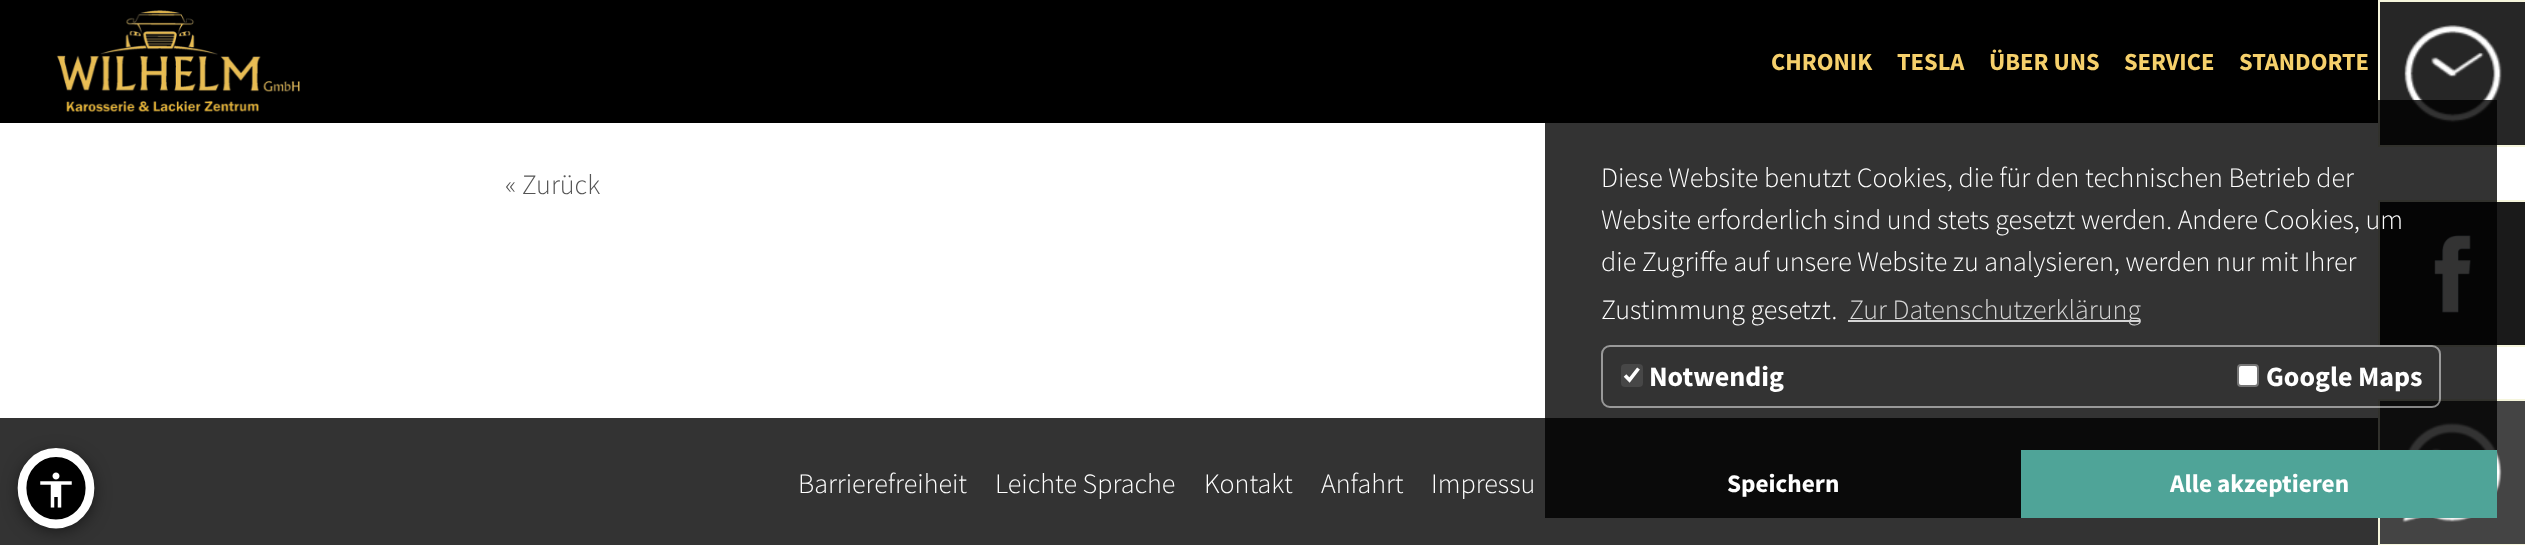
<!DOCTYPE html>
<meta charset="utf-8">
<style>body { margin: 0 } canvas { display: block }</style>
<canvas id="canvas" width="2525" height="545"></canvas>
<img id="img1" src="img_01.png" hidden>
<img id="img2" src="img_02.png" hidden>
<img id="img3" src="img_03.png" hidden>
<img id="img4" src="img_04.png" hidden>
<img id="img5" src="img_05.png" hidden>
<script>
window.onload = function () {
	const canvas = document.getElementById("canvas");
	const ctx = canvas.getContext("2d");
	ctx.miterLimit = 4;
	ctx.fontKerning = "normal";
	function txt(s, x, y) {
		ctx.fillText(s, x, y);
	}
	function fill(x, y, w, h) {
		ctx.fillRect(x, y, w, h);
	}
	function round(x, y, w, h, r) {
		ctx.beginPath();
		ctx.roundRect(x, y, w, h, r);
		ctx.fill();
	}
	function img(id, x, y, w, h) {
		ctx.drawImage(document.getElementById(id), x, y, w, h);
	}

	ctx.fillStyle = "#FFFFFF";
	fill(0, 0, 2525, 545);
	ctx.fillStyle = "#000000";
	fill(0, 0, 2378, 123);
	img("img1", 56, 10, 244, 102);
	ctx.fillStyle = "#262626";
	fill(2380, 2, 145, 143);
	img("img2", 2404, 25, 98, 98);
	ctx.fillStyle = "#F5F5DC";
	fill(2378, 0, 147, 2);
	fill(2378, 145, 147, 2);
	fill(2378, 0, 2, 147);
	ctx.fillStyle = "#1A1A1A";
	fill(2380, 202, 145, 143);
	img("img3", 2434, 235, 37, 78);
	ctx.fillStyle = "#F5F5DC";
	fill(2378, 200, 147, 2);
	fill(2378, 345, 147, 2);
	fill(2378, 200, 2, 147);
	ctx.fillStyle = "#444444";
	fill(2380, 401, 145, 143);
	img("img4", 2402, 422, 100, 101);
	ctx.fillStyle = "#F5F5DC";
	fill(2378, 399, 147, 2);
	fill(2378, 544, 147, 1);
	fill(2378, 399, 2, 146);
	ctx.fillStyle = "#333333";
	fill(0, 418, 2378, 127);
	ctx.fillStyle = "rgba(0, 0, 0, 0.8)";
	fill(1545, 100, 952, 418);
	ctx.fillStyle = "#D6D6D6";
	fill(1848, 320, 292, 2);
	ctx.beginPath();
	ctx.roundRect(1602, 346, 838, 61, 8);
	ctx.strokeStyle = "rgba(255, 255, 255, 0.5)";
	ctx.lineWidth = 2;
	ctx.stroke();
	ctx.fillStyle = "#474747";
	round(1621, 364, 22, 23, 4);
	ctx.beginPath();
	ctx.moveTo(1625, 375.5);
	ctx.lineTo(1629.5, 380);
	ctx.lineTo(1638.5, 368.5);
	ctx.strokeStyle = "#FFFFFF";
	ctx.lineWidth = 3.6;
	ctx.stroke();
	ctx.fillStyle = "#FFFFFF";
	ctx.beginPath();
	ctx.roundRect(2238, 365, 20, 21, 3);
	ctx.fill();
	ctx.strokeStyle = "#767676";
	ctx.lineWidth = 2;
	ctx.stroke();
	ctx.fillStyle = "#4FA498";
	fill(2021, 450, 476, 68);
	ctx.fillStyle = "#000000";
	ctx.filter = "blur(10.5px)";
	ctx.beginPath();
	ctx.roundRect(25, 459, 63, 66, 31.5);
	ctx.fill();
	ctx.filter = "none";
	ctx.beginPath();
	ctx.ellipse(56, 488, 38.5, 40, 0, 0, Math.PI * 2);
	ctx.fill();
	ctx.beginPath();
	ctx.moveTo(56, 452.5);
	ctx.bezierCurveTo(75, 452.5, 90, 468.5, 90, 488);
	ctx.bezierCurveTo(90, 508, 75, 524, 56, 524);
	ctx.bezierCurveTo(37, 524, 22, 508, 22, 488);
	ctx.bezierCurveTo(22, 468.5, 37, 452.5, 56, 452.5);
	ctx.closePath();
	ctx.strokeStyle = "#FFFFFF";
	ctx.lineWidth = 8.8;
	ctx.stroke();
	img("img5", 40, 472, 32, 36);
	ctx.font = "bold 24.5px Source Sans Pro";
	ctx.fillStyle = "#F6D06B";
	txt("CHRONIK", 1771, 70);
	txt("TESLA", 1897, 70);
	txt("ÜBER UNS", 1989, 70);
	txt("SERVICE", 2124, 70);
	txt("STANDORTE", 2239, 70);
	ctx.font = "300 28px Source Sans Pro";
	ctx.fillStyle = "#555555";
	txt("« Zurück", 505, 194);
	ctx.fillStyle = "#FFFFFF";
	txt("Diese Website benutzt Cookies, die für den technischen Betrieb der", 1601, 187);
	txt("Website erforderlich sind und stets gesetzt werden. Andere Cookies, um", 1601, 229);
	txt("die Zugriffe auf unsere Website zu analysieren, werden nur mit Ihrer", 1601, 271);
	txt("Zustimmung gesetzt.", 1601, 319);
	ctx.fillStyle = "#D6D6D6";
	txt("Zur Datenschutzerklärung", 1849, 319);
	ctx.font = "bold 28px Source Sans Pro";
	ctx.fillStyle = "#FFFFFF";
	txt("Notwendig", 1649, 386);
	txt("Google Maps", 2266, 386);
	ctx.font = "bold 25.25px Source Sans Pro";
	txt("Speichern", 1727, 492);
	txt("Alle akzeptieren", 2170, 492);
	ctx.font = "300 28px Source Sans Pro";
	txt("Barrierefreiheit", 798, 493);
	txt("Leichte Sprache", 995, 493);
	txt("Kontakt", 1204, 493);
	txt("Anfahrt", 1321, 493);
	txt("Impressu", 1431, 493);
};
</script>
